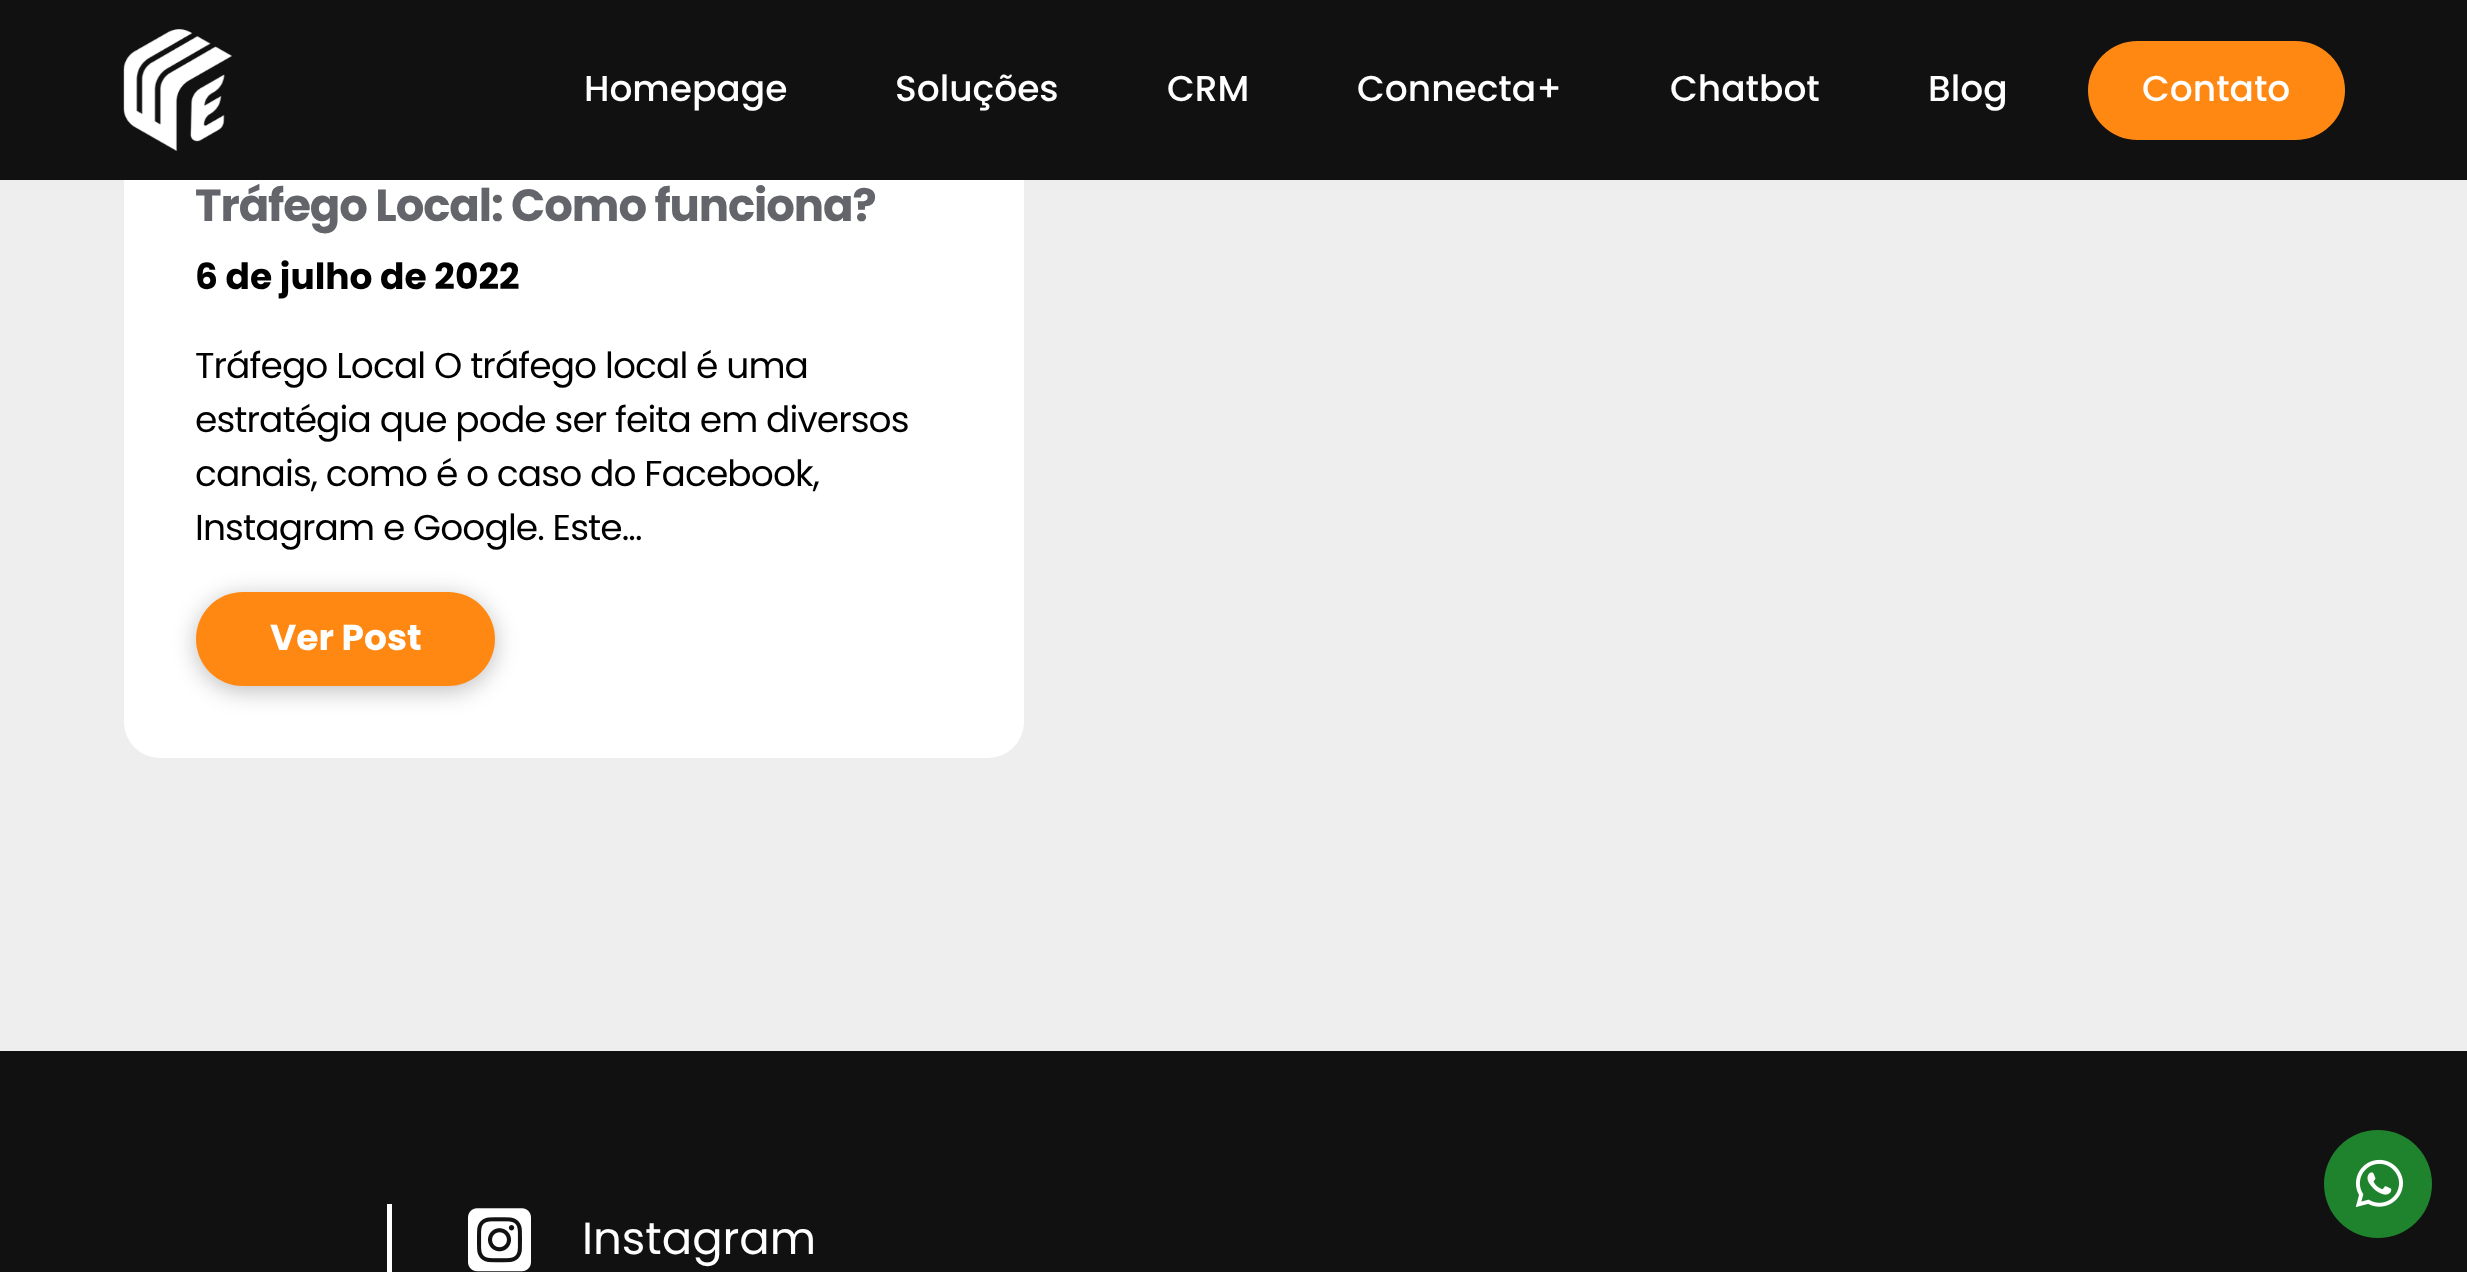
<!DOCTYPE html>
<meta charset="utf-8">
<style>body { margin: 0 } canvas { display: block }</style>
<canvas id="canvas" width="2467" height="1272"></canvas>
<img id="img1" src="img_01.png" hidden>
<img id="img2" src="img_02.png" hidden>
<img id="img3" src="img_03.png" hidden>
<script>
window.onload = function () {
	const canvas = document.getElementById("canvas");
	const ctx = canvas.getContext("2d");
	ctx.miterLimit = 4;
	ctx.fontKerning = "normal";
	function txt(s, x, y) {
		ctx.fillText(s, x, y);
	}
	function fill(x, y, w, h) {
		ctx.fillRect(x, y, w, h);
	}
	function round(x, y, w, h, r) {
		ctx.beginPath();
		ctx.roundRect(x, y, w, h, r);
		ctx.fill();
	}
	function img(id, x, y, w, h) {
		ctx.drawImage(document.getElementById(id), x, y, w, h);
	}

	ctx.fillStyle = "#EEEEEE";
	fill(0, 0, 2467, 1272);
	ctx.fillStyle = "#FFFFFF";
	round(124, -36, 900, 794, 36);
	ctx.fillStyle = "#111111";
	fill(0, 0, 2467, 180);
	img("img1", 123, 29, 109, 122);
	ctx.fillStyle = "#FF8813";
	round(2088, 41, 257, 99, 49.5);
	ctx.fillStyle = "#111111";
	fill(0, 1051, 2467, 221);
	ctx.fillStyle = "#1F832E";
	ctx.beginPath();
	ctx.arc(2378, 1184, 54, 0, Math.PI * 2);
	ctx.fill();
	img("img2", 2355, 1159, 48, 48);
	ctx.fillStyle = "rgba(0, 0, 0, 0.25)";
	ctx.filter = "blur(11.5px)";
	ctx.beginPath();
	ctx.roundRect(196, 596, 299, 95, 47.5);
	ctx.fill();
	ctx.filter = "none";
	ctx.fillStyle = "#FF8813";
	round(196, 592, 299, 94, 47);
	ctx.fillStyle = "#FFFFFF";
	fill(387, 1204, 5, 68);
	img("img3", 468, 1208, 63, 64);
	ctx.font = "500 36px Poppins";
	txt("Homepage", 584, 101);
	txt("Soluções", 895, 101);
	txt("CRM", 1167, 101);
	txt("Connecta+", 1357, 101);
	txt("Chatbot", 1670, 101);
	txt("Blog", 1928, 101);
	txt("Contato", 2142, 101);
	ctx.letterSpacing = "-1.1px";
	ctx.font = "bold 45px Poppins";
	ctx.fillStyle = "#63656A";
	txt("Tráfego Local: Como funciona?", 195, 221);
	ctx.letterSpacing = "0px";
	ctx.font = "bold 36px Poppins";
	ctx.fillStyle = "#000000";
	txt("6 de julho de 2022", 195, 289);
	ctx.letterSpacing = "-0.9px";
	ctx.font = "36px Poppins";
	txt("Tráfego Local O tráfego local é uma", 195, 378);
	txt("estratégia que pode ser feita em diversos", 195, 432);
	txt("canais, como é o caso do Facebook,", 195, 486);
	txt("Instagram e Google. Este...", 195, 540);
	ctx.letterSpacing = "0px";
	ctx.font = "bold 36px Poppins";
	ctx.fillStyle = "#FFFFFF";
	txt("Ver Post", 270, 650);
	ctx.font = "45px Poppins";
	txt("Instagram", 582, 1254);
};
</script>
